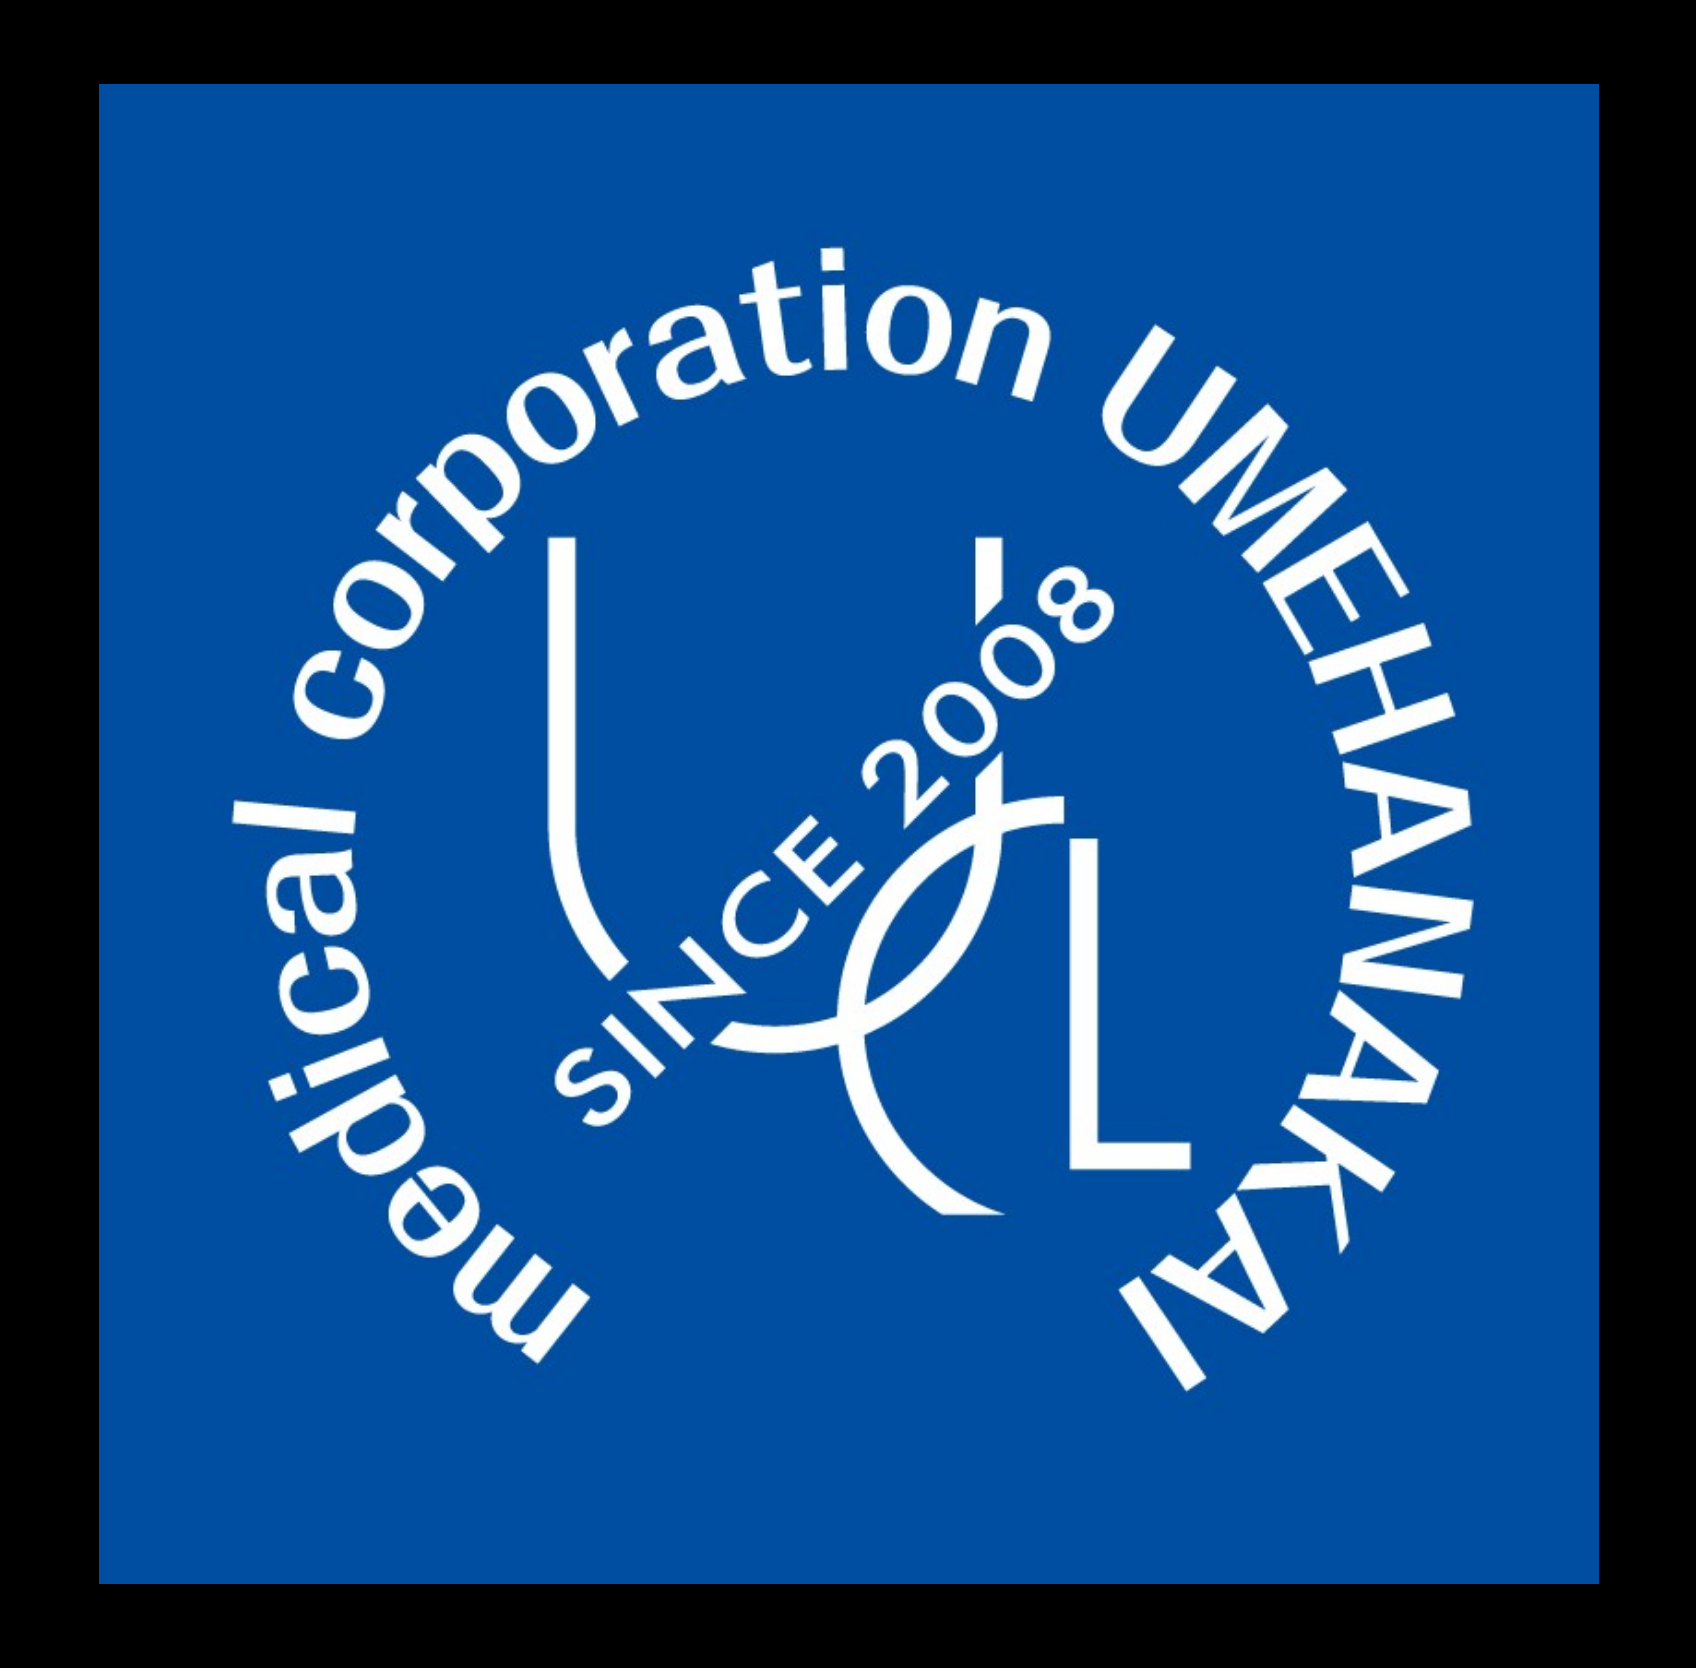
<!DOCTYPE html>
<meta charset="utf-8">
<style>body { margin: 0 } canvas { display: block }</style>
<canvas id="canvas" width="1696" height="1668"></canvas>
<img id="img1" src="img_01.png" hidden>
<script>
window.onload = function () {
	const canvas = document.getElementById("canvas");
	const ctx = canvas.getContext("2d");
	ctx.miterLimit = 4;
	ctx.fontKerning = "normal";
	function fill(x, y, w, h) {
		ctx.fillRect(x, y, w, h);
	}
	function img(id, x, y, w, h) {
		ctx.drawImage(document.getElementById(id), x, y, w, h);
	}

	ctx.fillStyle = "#000000";
	fill(0, 0, 1696, 1668);
	img("img1", 99, 84, 1500, 1500);
};
</script>
